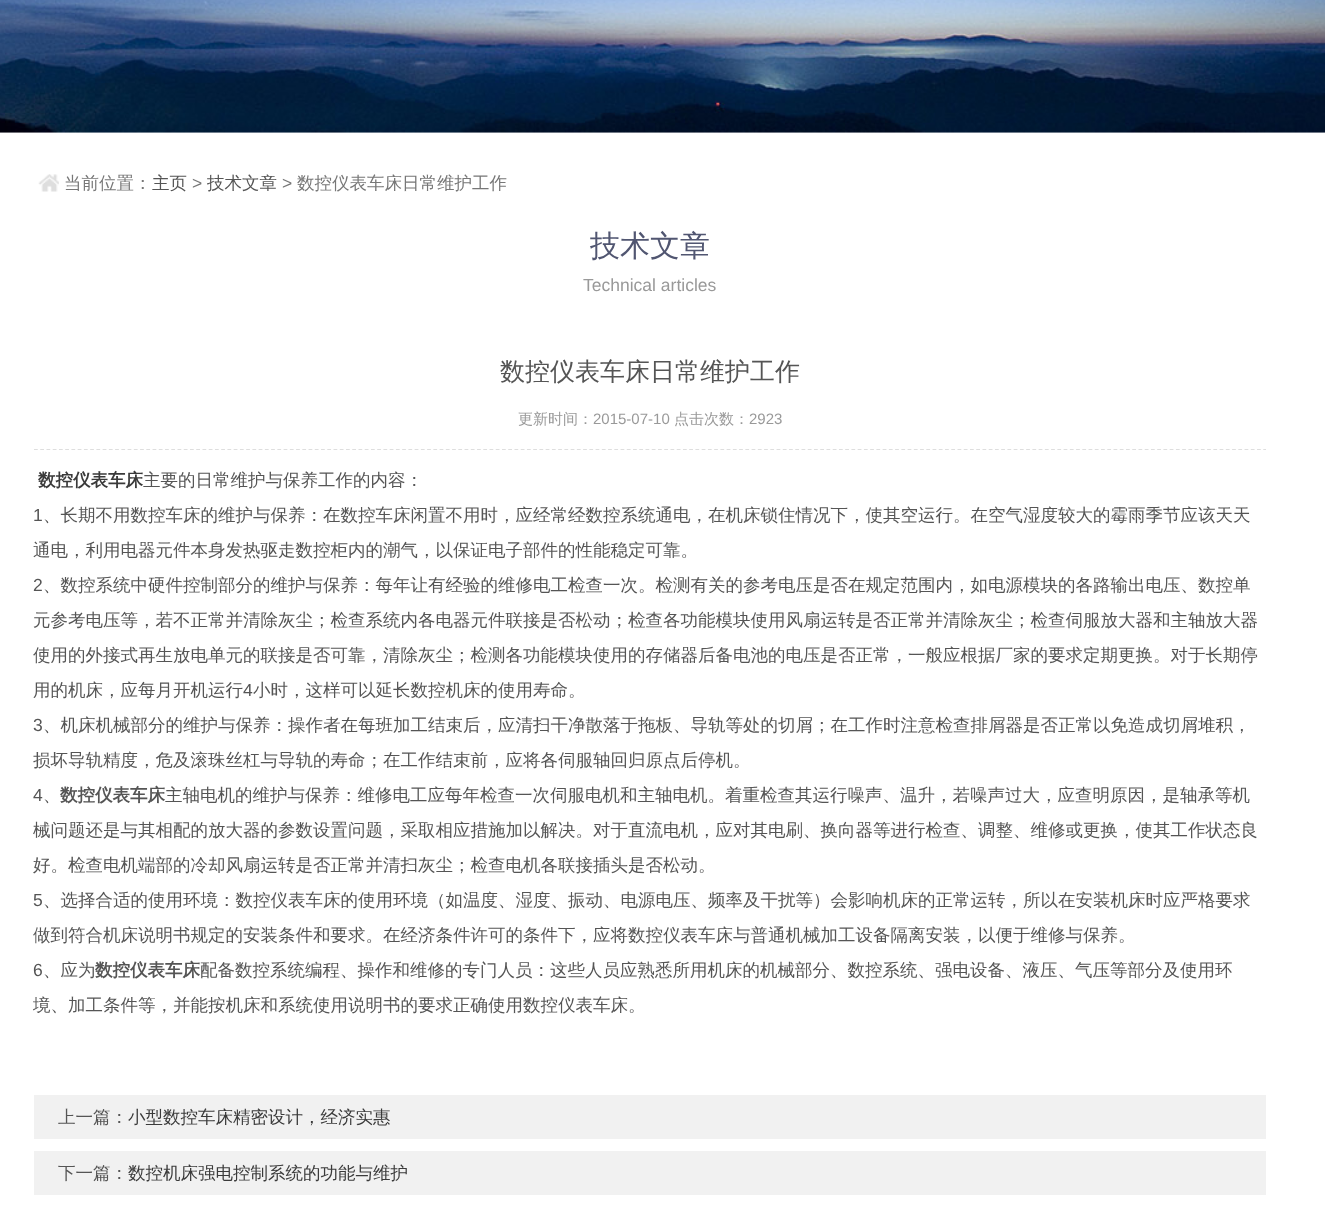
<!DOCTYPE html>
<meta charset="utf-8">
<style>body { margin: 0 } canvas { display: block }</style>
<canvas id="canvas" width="1325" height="1226"></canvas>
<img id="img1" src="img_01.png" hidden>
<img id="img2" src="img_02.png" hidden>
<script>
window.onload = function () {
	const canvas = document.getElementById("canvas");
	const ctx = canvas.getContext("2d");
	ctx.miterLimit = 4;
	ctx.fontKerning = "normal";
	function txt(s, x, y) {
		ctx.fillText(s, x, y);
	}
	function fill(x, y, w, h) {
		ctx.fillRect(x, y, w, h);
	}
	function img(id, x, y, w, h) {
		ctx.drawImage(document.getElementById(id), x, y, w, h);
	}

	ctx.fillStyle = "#FFFFFF";
	fill(0, 0, 1325, 1226);
	img("img1", 0, 0, 1325, 133);
	img("img2", 38, 174, 21, 18);
	ctx.beginPath();
	ctx.moveTo(34, 449.5);
	ctx.lineTo(1266, 449.5);
	ctx.strokeStyle = "#DEDEDE";
	ctx.lineWidth = 1.2;
	ctx.setLineDash([3.75, 2.49]);
	ctx.stroke();
	ctx.fillStyle = "#F1F1F1";
	fill(34, 1095, 1232, 44);
	fill(34, 1151, 1232, 44);
	ctx.font = "500 17.5px WenQuanYi Zen Hei";
	ctx.fillStyle = "#777777";
	txt("当前位置：", 64, 189);
	ctx.fillStyle = "#555555";
	txt("主页", 152, 189);
	ctx.font = "17.5px Liberation Sans";
	ctx.fillStyle = "#777777";
	txt(">", 192, 189);
	ctx.font = "500 17.5px WenQuanYi Zen Hei";
	ctx.fillStyle = "#555555";
	txt("技术文章", 207, 189);
	ctx.font = "17.5px Liberation Sans";
	ctx.fillStyle = "#777777";
	txt(">", 282, 189);
	ctx.font = "500 17.5px WenQuanYi Zen Hei";
	txt("数控仪表车床日常维护工作", 297, 189);
	ctx.font = "500 30px WenQuanYi Zen Hei";
	ctx.fillStyle = "#515671";
	txt("技术文章", 590, 256);
	ctx.font = "17.5px Liberation Sans";
	ctx.fillStyle = "#999999";
	txt("Technical articles", 583, 291);
	ctx.font = "500 25px WenQuanYi Zen Hei";
	ctx.fillStyle = "#555555";
	txt("数控仪表车床日常维护工作", 500, 380);
	ctx.font = "500 15px WenQuanYi Zen Hei";
	ctx.fillStyle = "#999999";
	txt("更新时间：", 518, 424);
	ctx.font = "15px Liberation Sans";
	txt("2015-07-10", 593, 424);
	ctx.font = "500 15px WenQuanYi Zen Hei";
	txt("点击次数：", 674, 424);
	ctx.font = "15px Liberation Sans";
	txt("2923", 749, 424);
	ctx.font = "bold 17.5px WenQuanYi Zen Hei";
	ctx.fillStyle = "#3A3A3A";
	txt("数控仪表车床", 38, 486);
	ctx.font = "500 17.5px WenQuanYi Zen Hei";
	ctx.fillStyle = "#555555";
	txt("主要的日常维护与保养工作的内容：", 143, 486);
	ctx.font = "17.5px Liberation Sans";
	txt("1", 33, 521);
	ctx.font = "500 17.5px WenQuanYi Zen Hei";
	txt("、长期不用数控车床的维护与保养：在数控车床闲置不用时，应经常经数控系统通电，在机床锁住情况下，使其空运行。在空气湿度较大的霉雨季节应该天天", 43, 521);
	txt("通电，利用电器元件本身发热驱走数控柜内的潮气，以保证电子部件的性能稳定可靠。", 33, 556);
	ctx.font = "17.5px Liberation Sans";
	txt("2", 33, 591);
	ctx.font = "500 17.5px WenQuanYi Zen Hei";
	txt("、数控系统中硬件控制部分的维护与保养：每年让有经验的维修电工检查一次。检测有关的参考电压是否在规定范围内，如电源模块的各路输出电压、数控单", 43, 591);
	txt("元参考电压等，若不正常并清除灰尘；检查系统内各电器元件联接是否松动；检查各功能模块使用风扇运转是否正常并清除灰尘；检查伺服放大器和主轴放大器", 33, 626);
	txt("使用的外接式再生放电单元的联接是否可靠，清除灰尘；检测各功能模块使用的存储器后备电池的电压是否正常，一般应根据厂家的要求定期更换。对于长期停", 33, 661);
	txt("用的机床，应每月开机运行", 33, 696);
	ctx.font = "17.5px Liberation Sans";
	txt("4", 243, 696);
	ctx.font = "500 17.5px WenQuanYi Zen Hei";
	txt("小时，这样可以延长数控机床的使用寿命。", 253, 696);
	ctx.font = "17.5px Liberation Sans";
	txt("3", 33, 731);
	ctx.font = "500 17.5px WenQuanYi Zen Hei";
	txt("、机床机械部分的维护与保养：操作者在每班加工结束后，应清扫干净散落于拖板、导轨等处的切屑；在工作时注意检查排屑器是否正常以免造成切屑堆积，", 43, 731);
	txt("损坏导轨精度，危及滚珠丝杠与导轨的寿命；在工作结束前，应将各伺服轴回归原点后停机。", 33, 766);
	ctx.font = "17.5px Liberation Sans";
	txt("4", 33, 801);
	ctx.font = "bold 17.5px WenQuanYi Zen Hei";
	txt("数控仪表车床", 60, 801);
	ctx.font = "500 17.5px WenQuanYi Zen Hei";
	txt("主轴电机的维护与保养：维修电工应每年检查一次伺服电机和主轴电机。着重检查其运行噪声、温升，若噪声过大，应查明原因，是轴承等机", 165, 801);
	txt("、", 43, 801);
	txt("械问题还是与其相配的放大器的参数设置问题，采取相应措施加以解决。对于直流电机，应对其电刷、换向器等进行检查、调整、维修或更换，使其工作状态良", 33, 836);
	txt("好。检查电机端部的冷却风扇运转是否正常并清扫灰尘；检查电机各联接插头是否松动。", 33, 871);
	ctx.font = "17.5px Liberation Sans";
	txt("5", 33, 906);
	ctx.font = "500 17.5px WenQuanYi Zen Hei";
	txt("、选择合适的使用环境：数控仪表车床的使用环境（如温度、湿度、振动、电源电压、频率及干扰等）会影响机床的正常运转，所以在安装机床时应严格要求", 43, 906);
	txt("做到符合机床说明书规定的安装条件和要求。在经济条件许可的条件下，应将数控仪表车床与普通机械加工设备隔离安装，以便于维修与保养。", 33, 941);
	ctx.font = "17.5px Liberation Sans";
	txt("6", 33, 976);
	ctx.font = "500 17.5px WenQuanYi Zen Hei";
	txt("、应为", 43, 976);
	ctx.font = "bold 17.5px WenQuanYi Zen Hei";
	txt("数控仪表车床", 95, 976);
	ctx.font = "500 17.5px WenQuanYi Zen Hei";
	txt("配备数控系统编程、操作和维修的专门人员：这些人员应熟悉所用机床的机械部分、数控系统、强电设备、液压、气压等部分及使用环", 200, 976);
	txt("境、加工条件等，并能按机床和系统使用说明书的要求正确使用数控仪表车床。", 33, 1011);
	txt("上一篇：", 58, 1123);
	ctx.fillStyle = "#3A3A3A";
	txt("小型数控车床精密设计，经济实惠", 128, 1123);
	ctx.fillStyle = "#555555";
	txt("下一篇：", 58, 1179);
	ctx.fillStyle = "#3A3A3A";
	txt("数控机床强电控制系统的功能与维护", 128, 1179);
};
</script>
